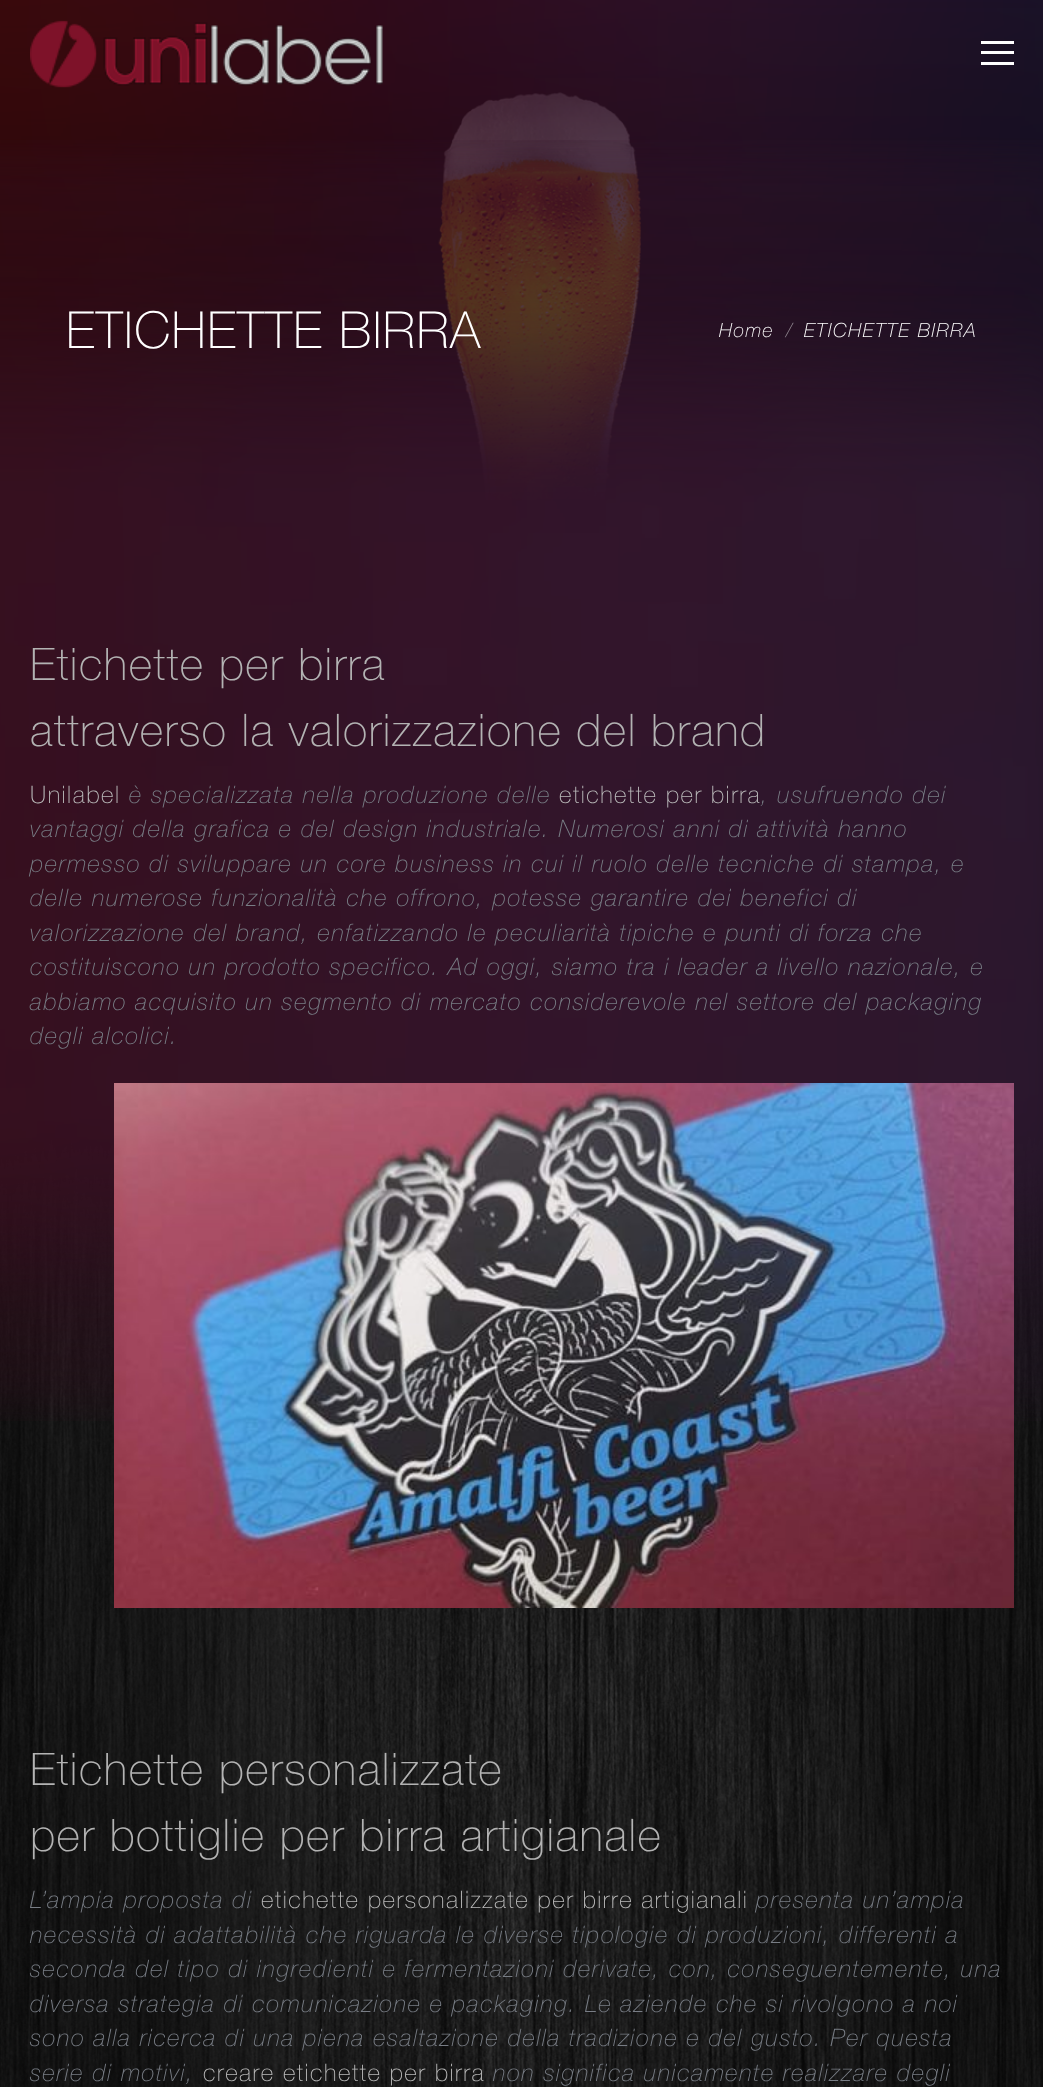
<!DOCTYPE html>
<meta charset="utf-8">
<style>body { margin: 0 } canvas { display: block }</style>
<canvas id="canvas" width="1043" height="2087"></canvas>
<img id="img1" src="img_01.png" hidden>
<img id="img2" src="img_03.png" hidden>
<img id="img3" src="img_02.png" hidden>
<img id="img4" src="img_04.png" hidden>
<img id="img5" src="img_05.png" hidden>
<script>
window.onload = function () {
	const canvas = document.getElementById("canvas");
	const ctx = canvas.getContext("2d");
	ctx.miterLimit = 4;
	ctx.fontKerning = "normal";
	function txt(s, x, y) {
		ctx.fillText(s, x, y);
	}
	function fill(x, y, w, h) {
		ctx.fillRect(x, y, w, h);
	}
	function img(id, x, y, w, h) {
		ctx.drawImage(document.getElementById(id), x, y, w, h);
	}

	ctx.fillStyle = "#FFFFFF";
	fill(0, 0, 1043, 2087);
	img("img1", 0, 555, 1043, 1532);
	img("img2", 0, 0, 1043, 555);
	img("img3", 30, 20, 353, 68);
	fill(981, 51, 33, 3);
	fill(981, 41, 33, 3);
	fill(981, 62, 33, 3);
	img("img4", 0, 140, 1043, 1281);
	img("img5", 114, 1083, 900, 525);
	ctx.letterSpacing = "1.5px";
	ctx.font = "100 51px Helvetica Neue";
	txt("ETICHETTE BIRRA", 66, 348);
	ctx.font = "italic 100 19.5px Helvetica Neue";
	txt("Home", 719, 337);
	ctx.fillStyle = "#928891";
	txt("/", 786, 337);
	ctx.fillStyle = "#FFFFFF";
	txt("ETICHETTE BIRRA", 804, 337);
	ctx.font = "100 45px Helvetica Neue";
	ctx.fillStyle = "#B3B3B3";
	txt("Etichette per birra", 30, 680);
	txt("attraverso la valorizzazione del brand", 30, 746);
	ctx.font = "100 24px Helvetica Neue";
	ctx.fillStyle = "#BABABA";
	txt("Unilabel", 30, 803);
	ctx.font = "italic 100 24px Helvetica Neue";
	ctx.fillStyle = "#787D85";
	txt("è specializzata nella produzione delle", 129, 803);
	ctx.font = "100 24px Helvetica Neue";
	ctx.fillStyle = "#BABABA";
	txt("etichette per birra", 559, 803);
	ctx.font = "italic 100 24px Helvetica Neue";
	ctx.fillStyle = "#787D85";
	txt(", usufruendo dei", 761, 803);
	txt("vantaggi della grafica e del design industriale. Numerosi anni di attività hanno", 30, 837);
	txt("permesso di sviluppare un core business in cui il ruolo delle tecniche di stampa, e", 30, 872);
	txt("delle numerose funzionalità che offrono, potesse garantire dei benefici di", 30, 906);
	txt("valorizzazione del brand, enfatizzando le peculiarità tipiche e punti di forza che", 30, 941);
	txt("costituiscono un prodotto specifico. Ad oggi, siamo tra i leader a livello nazionale, e", 30, 975);
	txt("abbiamo acquisito un segmento di mercato considerevole nel settore del packaging", 30, 1010);
	txt("degli alcolici.", 30, 1044);
	ctx.font = "100 45px Helvetica Neue";
	ctx.fillStyle = "#B3B3B3";
	txt("Etichette personalizzate", 30, 1785);
	txt("per bottiglie per birra artigianale", 30, 1851);
	ctx.font = "italic 100 24px Helvetica Neue";
	ctx.fillStyle = "#787D85";
	txt("L’ampia proposta di", 30, 1908);
	ctx.font = "100 24px Helvetica Neue";
	ctx.fillStyle = "#BABABA";
	txt("etichette personalizzate per birre artigianali", 261, 1908);
	ctx.font = "italic 100 24px Helvetica Neue";
	ctx.fillStyle = "#787D85";
	txt("presenta un’ampia", 756, 1908);
	txt("necessità di adattabilità che riguarda le diverse tipologie di produzioni, differenti a", 30, 1943);
	txt("seconda del tipo di ingredienti e fermentazioni derivate, con, conseguentemente, una", 30, 1977);
	txt("diversa strategia di comunicazione e packaging. Le aziende che si rivolgono a noi", 30, 2012);
	txt("sono alla ricerca di una piena esaltazione della tradizione e del gusto. Per questa", 30, 2046);
	txt("serie di motivi,", 30, 2081);
	ctx.font = "100 24px Helvetica Neue";
	ctx.fillStyle = "#BABABA";
	txt("creare etichette per birra", 203, 2081);
	ctx.font = "italic 100 24px Helvetica Neue";
	ctx.fillStyle = "#787D85";
	txt("non significa unicamente realizzare degli", 493, 2081);
};
</script>
